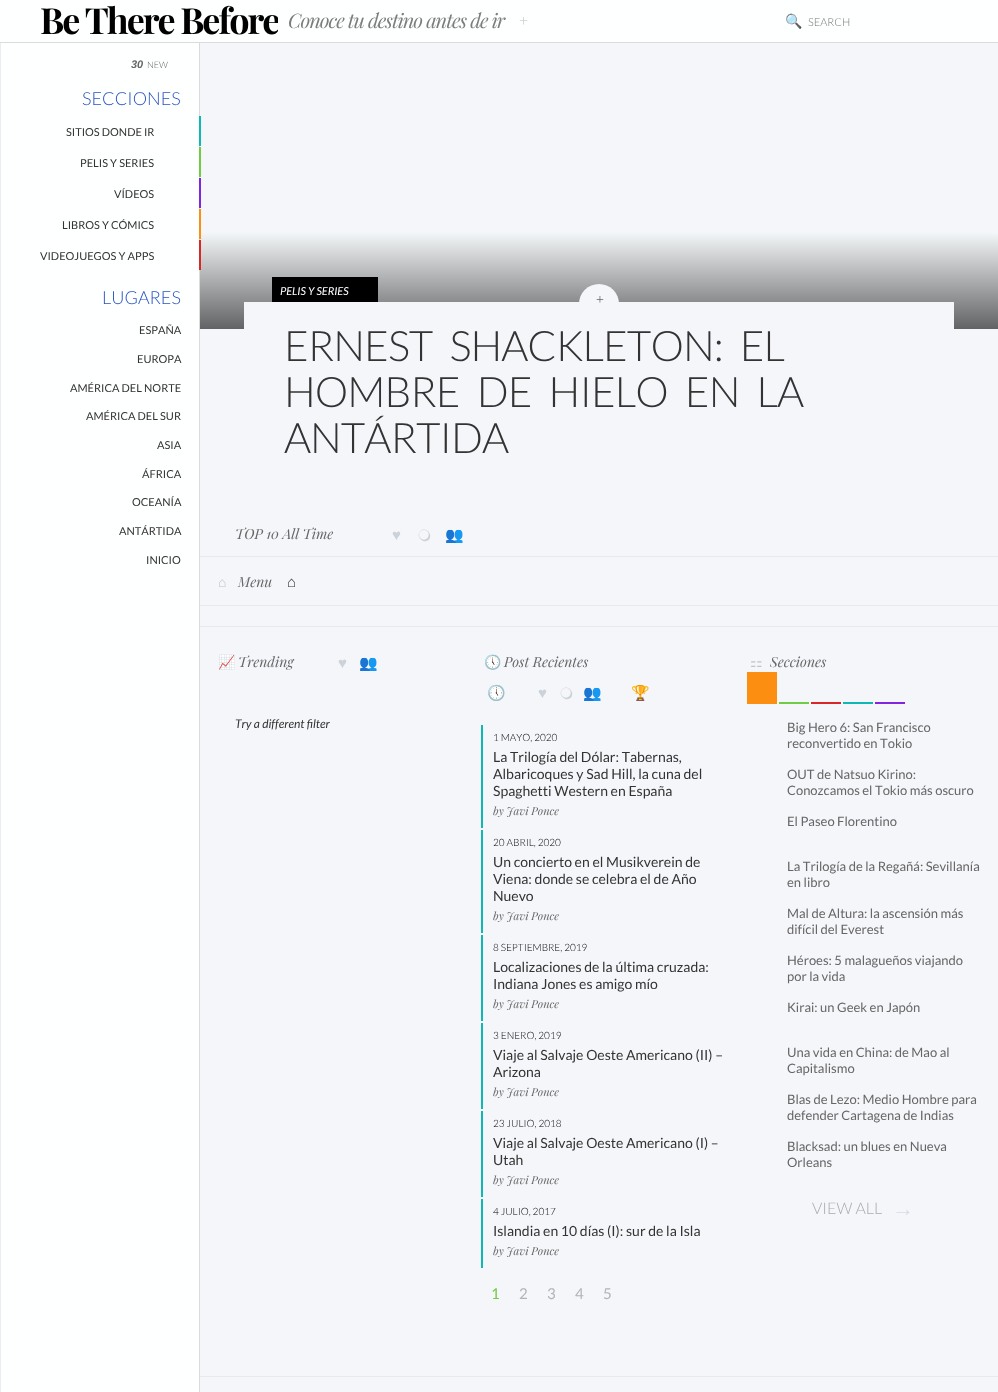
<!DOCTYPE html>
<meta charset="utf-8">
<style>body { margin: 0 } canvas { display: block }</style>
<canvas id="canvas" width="998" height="1392"></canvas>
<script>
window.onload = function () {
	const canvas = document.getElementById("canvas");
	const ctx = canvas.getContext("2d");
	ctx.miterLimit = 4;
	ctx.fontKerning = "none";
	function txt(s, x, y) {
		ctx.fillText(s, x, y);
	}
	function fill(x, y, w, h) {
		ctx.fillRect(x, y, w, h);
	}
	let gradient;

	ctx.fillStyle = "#F5F6FA";
	fill(0, 0, 998, 1392);
	ctx.fillStyle = "#FEFFFF";
	fill(0, 0, 998, 42);
	ctx.fillStyle = "#DBDBDB";
	fill(0, 42, 998, 1);
	ctx.fillStyle = "#FEFFFF";
	fill(1, 43, 198, 1349);
	ctx.fillStyle = "#DBDBDB";
	fill(199, 43, 1, 1349);
	ctx.fillStyle = "#EBEBF0";
	fill(0, 43, 1, 1349);
	ctx.fillStyle = "#0DB8B5";
	fill(199, 116, 2, 30);
	ctx.fillStyle = "#6FCC43";
	fill(199, 147, 2, 30);
	ctx.fillStyle = "#8224E3";
	fill(199, 178, 2, 30);
	gradient = ctx.createLinearGradient(599, 52, 599, 329);
	gradient.addColorStop(0, "#F4F7F9");
	gradient.addColorStop(0.65, "#F4F7F9");
	gradient.addColorStop(1, "#626364");
	ctx.fillStyle = gradient;
	fill(200, 233, 798, 96);
	ctx.fillStyle = "#FC8F12";
	fill(199, 209, 2, 30);
	ctx.fillStyle = "#D92727";
	fill(199, 240, 2, 30);
	ctx.fillStyle = "#000000";
	fill(272, 277, 106, 25);
	ctx.fillStyle = "#F5F6FA";
	fill(244, 302, 710, 27);
	ctx.beginPath();
	ctx.arc(599, 304, 20, 0, Math.PI * 2);
	ctx.fill();
	ctx.fillStyle = "#E9E9E9";
	fill(200, 556, 798, 1);
	fill(200, 605, 798, 1);
	fill(200, 626, 798, 1);
	ctx.fillStyle = "#0DB8B5";
	fill(481, 725, 2, 103);
	fill(481, 830, 2, 103);
	fill(481, 935, 2, 86);
	fill(481, 1023, 2, 86);
	fill(481, 1111, 2, 86);
	fill(481, 1199, 2, 69);
	ctx.fillStyle = "#FC8F12";
	fill(747, 672, 30, 32);
	ctx.fillStyle = "#6FCC43";
	fill(779, 702, 30, 2);
	ctx.fillStyle = "#D92727";
	fill(811, 702, 30, 2);
	ctx.fillStyle = "#0DB8B5";
	fill(843, 702, 30, 2);
	ctx.fillStyle = "#8224E3";
	fill(875, 702, 30, 2);
	ctx.fillStyle = "#E9E9E9";
	fill(200, 1376, 798, 1);
	ctx.save();
	ctx.beginPath();
	ctx.rect(40, 0, 238, 43);
	ctx.clip();
	ctx.letterSpacing = "-2px";
	ctx.font = "bold 36px Playfair Display";
	ctx.fillStyle = "#000000";
	txt("Be There Before", 40, 34);
	ctx.restore();
	ctx.letterSpacing = "-1px";
	ctx.font = "italic 20px Playfair Display";
	ctx.fillStyle = "#7B7C7E";
	txt("Conoce tu destino antes de ir", 288, 28);
	ctx.letterSpacing = "0px";
	ctx.font = "16px Liberation Serif";
	ctx.fillStyle = "#CBD2D9";
	txt("+", 519, 26);
	ctx.font = "14px Noto Color Emoji";
	ctx.fillStyle = "#9BA1A6";
	txt("🔍", 785, 26);
	ctx.font = "300 11px Lato";
	ctx.fillStyle = "#757575";
	txt("SEARCH", 808, 26);
	ctx.font = "italic bold 11px Liberation Sans";
	ctx.fillStyle = "#666666";
	txt("30", 131, 68);
	ctx.font = "300 9px Lato";
	txt("NEW", 147, 68);
	ctx.font = "300 18px Lato";
	ctx.fillStyle = "#2A53C1";
	txt("SECCIONES", 82, 105);
	ctx.font = "11px Lato";
	ctx.fillStyle = "#333333";
	txt("SITIOS DONDE IR", 66, 136);
	txt("PELIS Y SERIES", 80, 167);
	txt("VÍDEOS", 114, 198);
	txt("LIBROS Y CÓMICS", 62, 229);
	txt("VIDEOJUEGOS Y APPS", 40, 260);
	ctx.font = "300 18px Lato";
	ctx.fillStyle = "#2A53C1";
	txt("LUGARES", 102, 304);
	ctx.font = "11px Lato";
	ctx.fillStyle = "#333333";
	txt("ESPAÑA", 139, 334);
	txt("EUROPA", 137, 363);
	txt("AMÉRICA DEL NORTE", 70, 392);
	txt("AMÉRICA DEL SUR", 86, 420);
	txt("ASIA", 157, 449);
	txt("ÁFRICA", 142, 478);
	txt("OCEANÍA", 132, 506);
	txt("ANTÁRTIDA", 119, 535);
	txt("INICIO", 146, 564);
	ctx.font = "italic 11px Lato";
	ctx.fillStyle = "#FFFFFF";
	txt("PELIS Y SERIES", 280, 295);
	ctx.font = "14px Liberation Serif";
	ctx.fillStyle = "#666666";
	txt("+", 596, 304);
	ctx.letterSpacing = "-1px";
	ctx.wordSpacing = "10px";
	ctx.font = "300 42px Lato";
	ctx.fillStyle = "#333333";
	txt("ERNEST SHACKLETON: EL", 284, 361);
	txt("HOMBRE DE HIELO EN LA", 284, 407);
	ctx.wordSpacing = "0px";
	txt("ANTÁRTIDA", 284, 453);
	ctx.letterSpacing = "0px";
	ctx.font = "italic 14px Playfair Display";
	ctx.fillStyle = "#666666";
	txt("TOP 10 All Time", 235, 539);
	ctx.font = "15px Liberation Serif";
	ctx.fillStyle = "#CBD2D9";
	txt("♥", 392, 540);
	ctx.font = "15px FreeSerif";
	txt("🔾", 418, 540);
	ctx.font = "15px Noto Color Emoji";
	txt("👥", 445, 540);
	ctx.font = "14px Liberation Serif";
	ctx.fillStyle = "#BFC5CC";
	txt("⌂", 218, 587);
	ctx.font = "italic 14px Playfair Display";
	ctx.fillStyle = "#666666";
	txt("Menu", 238, 587);
	ctx.font = "15px Liberation Serif";
	ctx.fillStyle = "#333333";
	txt("⌂", 287, 587);
	ctx.font = "14px Noto Color Emoji";
	ctx.fillStyle = "#BFC5CC";
	txt("📈", 218, 667);
	ctx.font = "italic 14px Playfair Display";
	ctx.fillStyle = "#666666";
	txt("Trending", 238, 667);
	ctx.font = "15px Liberation Serif";
	ctx.fillStyle = "#CBD2D9";
	txt("♥", 338, 668);
	ctx.font = "15px Noto Color Emoji";
	txt("👥", 359, 668);
	ctx.font = "italic 12px Lato";
	ctx.fillStyle = "#333333";
	txt("Try a different filter", 235, 728);
	ctx.font = "14px Noto Color Emoji";
	ctx.fillStyle = "#BFC5CC";
	txt("🕔", 484, 667);
	ctx.font = "italic 14px Playfair Display";
	ctx.fillStyle = "#666666";
	txt("Post Recientes", 504, 667);
	ctx.font = "15px Noto Color Emoji";
	ctx.fillStyle = "#6FCC43";
	txt("🕔", 487, 698);
	ctx.font = "15px Liberation Serif";
	ctx.fillStyle = "#CBD2D9";
	txt("♥", 538, 698);
	ctx.font = "15px FreeSerif";
	txt("🔾", 560, 698);
	ctx.font = "15px Noto Color Emoji";
	txt("👥", 583, 698);
	txt("🏆", 631, 698);
	ctx.font = "300 10px Lato";
	ctx.fillStyle = "#000000";
	txt("1 MAYO, 2020", 493, 741);
	ctx.font = "14px Lato";
	ctx.fillStyle = "#333333";
	txt("La Trilogía del Dólar: Tabernas,", 493, 762);
	txt("Albaricoques y Sad Hill, la cuna del", 493, 779);
	txt("Spaghetti Western en España", 493, 796);
	ctx.font = "italic 11px Playfair Display";
	ctx.fillStyle = "#666666";
	txt("by Javi Ponce", 493, 815);
	ctx.font = "300 10px Lato";
	ctx.fillStyle = "#000000";
	txt("20 ABRIL, 2020", 493, 846);
	ctx.font = "14px Lato";
	ctx.fillStyle = "#333333";
	txt("Un concierto en el Musikverein de", 493, 867);
	txt("Viena: donde se celebra el de Año", 493, 884);
	txt("Nuevo", 493, 901);
	ctx.font = "italic 11px Playfair Display";
	ctx.fillStyle = "#666666";
	txt("by Javi Ponce", 493, 920);
	ctx.font = "300 10px Lato";
	ctx.fillStyle = "#000000";
	txt("8 SEPTIEMBRE, 2019", 493, 951);
	ctx.font = "14px Lato";
	ctx.fillStyle = "#333333";
	txt("Localizaciones de la última cruzada:", 493, 972);
	txt("Indiana Jones es amigo mío", 493, 989);
	ctx.font = "italic 11px Playfair Display";
	ctx.fillStyle = "#666666";
	txt("by Javi Ponce", 493, 1008);
	ctx.font = "300 10px Lato";
	ctx.fillStyle = "#000000";
	txt("3 ENERO, 2019", 493, 1039);
	ctx.font = "14px Lato";
	ctx.fillStyle = "#333333";
	txt("Viaje al Salvaje Oeste Americano (II) –", 493, 1060);
	txt("Arizona", 493, 1077);
	ctx.font = "italic 11px Playfair Display";
	ctx.fillStyle = "#666666";
	txt("by Javi Ponce", 493, 1096);
	ctx.font = "300 10px Lato";
	ctx.fillStyle = "#000000";
	txt("23 JULIO, 2018", 493, 1127);
	ctx.font = "14px Lato";
	ctx.fillStyle = "#333333";
	txt("Viaje al Salvaje Oeste Americano (I) –", 493, 1148);
	txt("Utah", 493, 1165);
	ctx.font = "italic 11px Playfair Display";
	ctx.fillStyle = "#666666";
	txt("by Javi Ponce", 493, 1184);
	ctx.font = "300 10px Lato";
	ctx.fillStyle = "#000000";
	txt("4 JULIO, 2017", 493, 1215);
	ctx.font = "14px Lato";
	ctx.fillStyle = "#333333";
	txt("Islandia en 10 días (I): sur de la Isla", 493, 1236);
	ctx.font = "italic 11px Playfair Display";
	ctx.fillStyle = "#666666";
	txt("by Javi Ponce", 493, 1255);
	ctx.font = "15px Lato";
	ctx.fillStyle = "#6FCC43";
	txt("1", 491, 1299);
	ctx.fillStyle = "#B0B4B9";
	txt("2", 519, 1299);
	txt("3", 547, 1299);
	txt("4", 575, 1299);
	txt("5", 603, 1299);
	ctx.font = "14px DejaVu Sans";
	ctx.fillStyle = "#BFC5CC";
	txt("⚏", 750, 667);
	ctx.font = "italic 14px Playfair Display";
	ctx.fillStyle = "#666666";
	txt("Secciones", 770, 667);
	ctx.font = "13px Lato";
	txt("Big Hero 6: San Francisco", 787, 732);
	txt("reconvertido en Tokio", 787, 748);
	txt("OUT de Natsuo Kirino:", 787, 779);
	txt("Conozcamos el Tokio más oscuro", 787, 795);
	txt("El Paseo Florentino", 787, 826);
	txt("La Trilogía de la Regañá: Sevillanía", 787, 871);
	txt("en libro", 787, 887);
	txt("Mal de Altura: la ascensión más", 787, 918);
	txt("difícil del Everest", 787, 934);
	txt("Héroes: 5 malagueños viajando", 787, 965);
	txt("por la vida", 787, 981);
	txt("Kirai: un Geek en Japón", 787, 1012);
	txt("Una vida en China: de Mao al", 787, 1057);
	txt("Capitalismo", 787, 1073);
	txt("Blas de Lezo: Medio Hombre para", 787, 1104);
	txt("defender Cartagena de Indias", 787, 1120);
	txt("Blacksad: un blues en Nueva", 787, 1151);
	txt("Orleans", 787, 1167);
	ctx.font = "300 16px Lato";
	ctx.fillStyle = "#AAAAAA";
	txt("VIEW ALL", 812, 1214);
	ctx.font = "22px Liberation Serif";
	ctx.fillStyle = "#D5DCE3";
	txt("→", 892, 1216);
};
</script>
